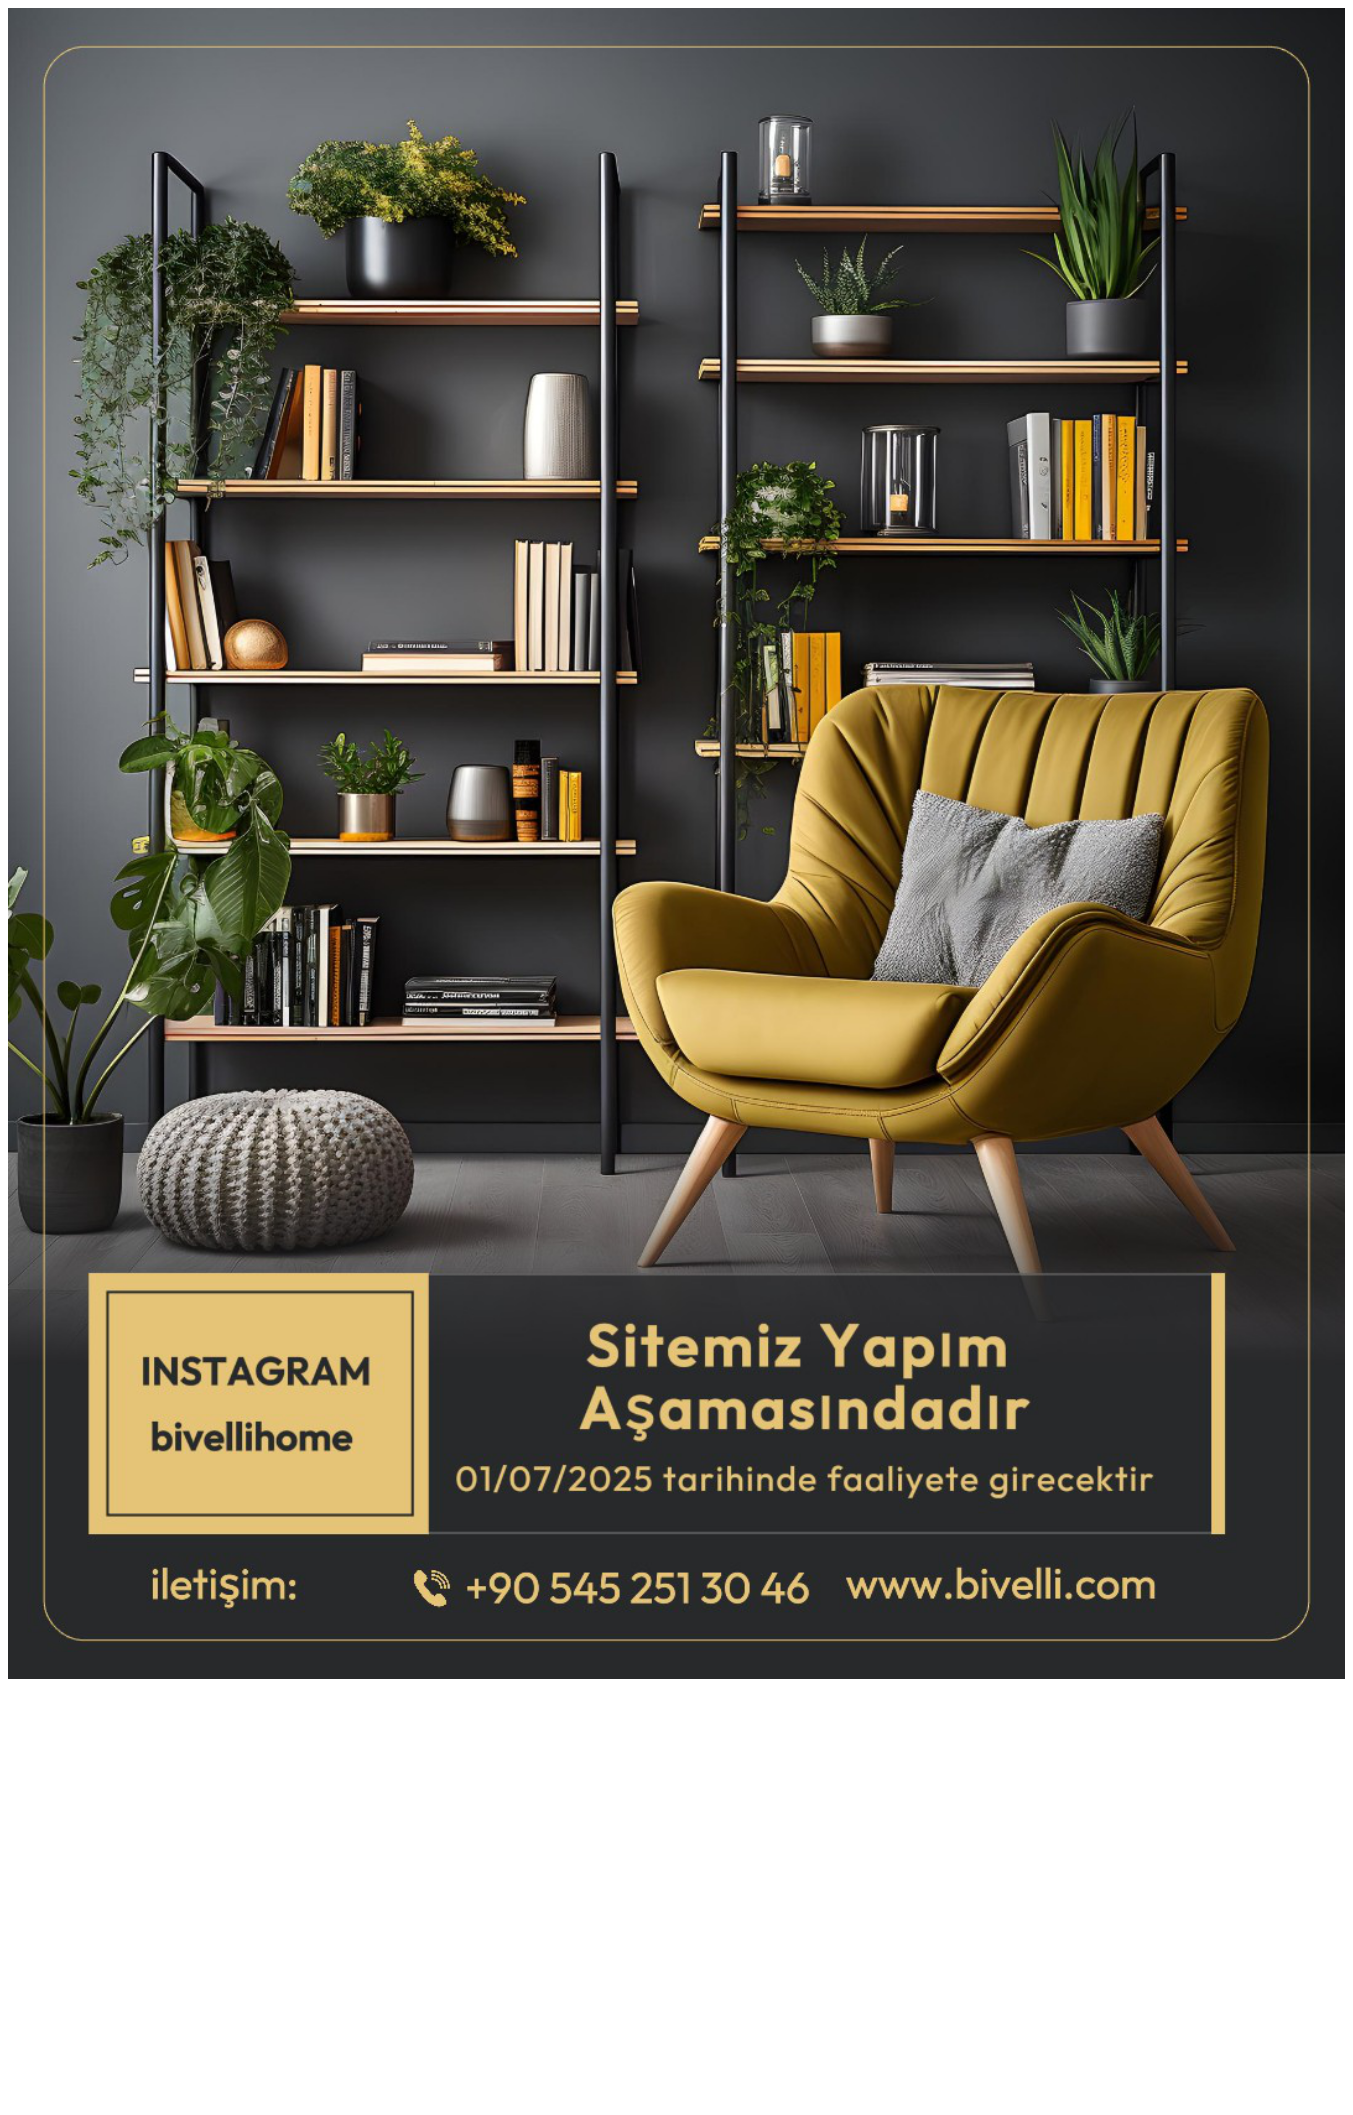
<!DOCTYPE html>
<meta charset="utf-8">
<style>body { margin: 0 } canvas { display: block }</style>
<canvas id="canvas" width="1353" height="2115"></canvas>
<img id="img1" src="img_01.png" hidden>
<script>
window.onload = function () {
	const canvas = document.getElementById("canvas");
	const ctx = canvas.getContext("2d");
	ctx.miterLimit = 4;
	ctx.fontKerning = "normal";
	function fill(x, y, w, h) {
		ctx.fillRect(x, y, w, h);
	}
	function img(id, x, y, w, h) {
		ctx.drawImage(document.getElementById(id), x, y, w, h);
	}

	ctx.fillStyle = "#FFFFFF";
	fill(0, 0, 1353, 2115);
	img("img1", 8, 8, 1337, 1671);
};
</script>
